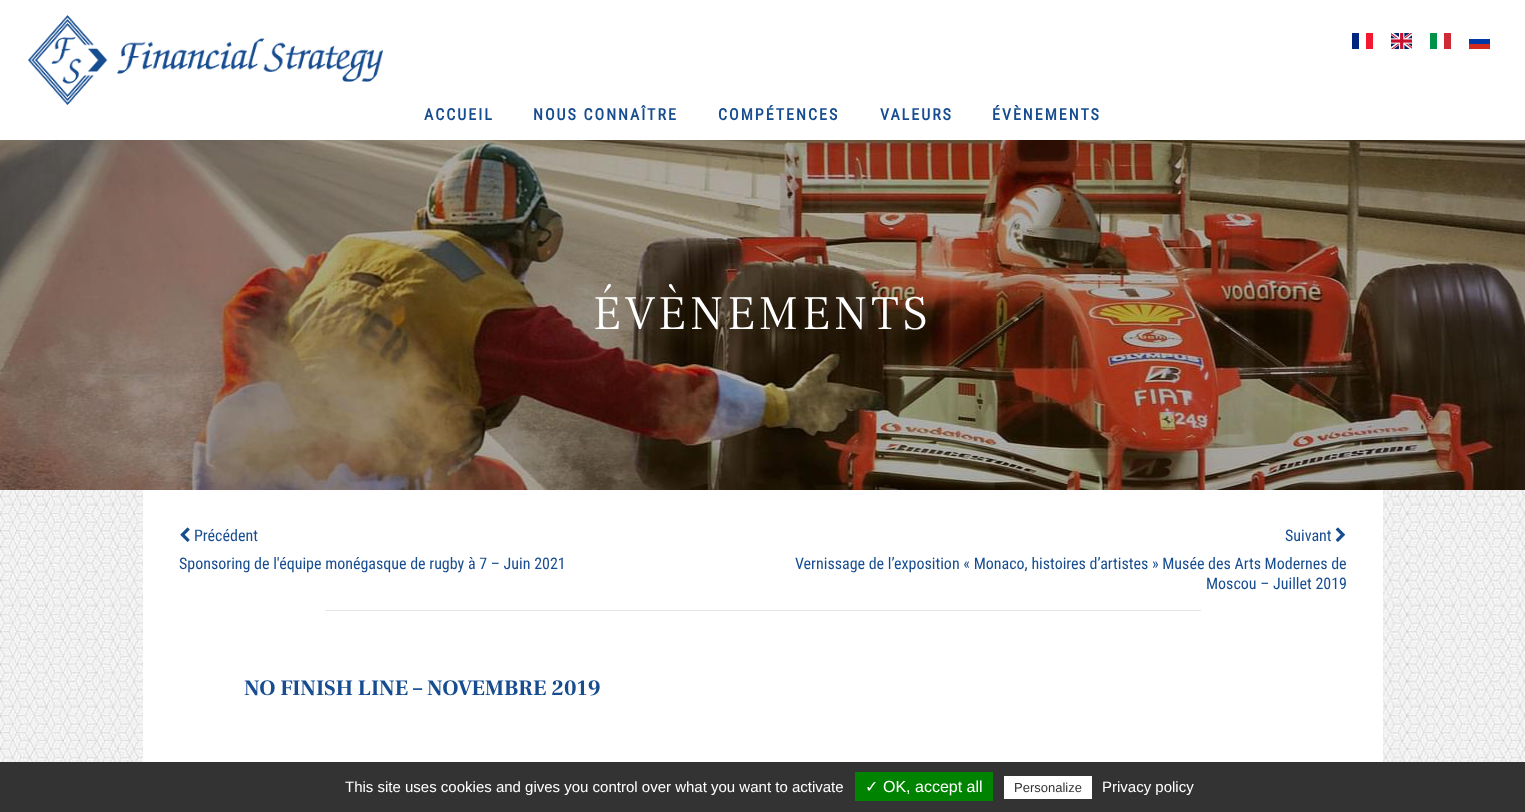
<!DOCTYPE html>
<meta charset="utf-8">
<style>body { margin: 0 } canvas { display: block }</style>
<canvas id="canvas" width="1525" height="812"></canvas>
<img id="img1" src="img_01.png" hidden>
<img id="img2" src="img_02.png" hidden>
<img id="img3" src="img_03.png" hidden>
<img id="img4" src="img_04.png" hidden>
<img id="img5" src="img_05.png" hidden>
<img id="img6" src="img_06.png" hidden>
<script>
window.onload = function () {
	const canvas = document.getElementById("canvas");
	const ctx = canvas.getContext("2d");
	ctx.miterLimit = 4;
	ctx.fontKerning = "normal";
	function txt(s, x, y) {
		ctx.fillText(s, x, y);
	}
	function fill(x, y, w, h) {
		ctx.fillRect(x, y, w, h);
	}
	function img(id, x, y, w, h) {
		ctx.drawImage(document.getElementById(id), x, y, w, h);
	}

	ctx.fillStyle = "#FFFFFF";
	fill(0, 0, 1525, 812);
	img("img1", 0, 490, 1525, 272);
	img("img2", 28, 15, 355, 90);
	ctx.fillStyle = "#00267F";
	fill(1352, 33, 7, 16);
	ctx.fillStyle = "#F31830";
	fill(1366, 33, 7, 16);
	img("img3", 1391, 33, 21, 16);
	ctx.fillStyle = "#009246";
	fill(1430, 33, 7, 16);
	ctx.fillStyle = "#CE2B37";
	fill(1444, 33, 7, 16);
	ctx.fillStyle = "#0039A6";
	fill(1469, 39, 21, 5);
	ctx.fillStyle = "#D52B1E";
	fill(1469, 44, 21, 5);
	img("img4", 0, 140, 1525, 350);
	ctx.fillStyle = "#FFFFFF";
	fill(143, 490, 1240, 272);
	img("img5", 180, 527, 10, 15);
	img("img6", 1335, 527, 10, 15);
	ctx.fillStyle = "#E6E6E6";
	fill(325, 610, 876, 1);
	ctx.fillStyle = "#333333";
	fill(0, 762, 1525, 50);
	ctx.fillStyle = "#008300";
	fill(855, 772, 138, 29);
	ctx.fillStyle = "#FFFFFF";
	fill(1004, 776, 88, 23);
	ctx.letterSpacing = "2px";
	ctx.font = "bold 16px Roboto Condensed";
	ctx.fillStyle = "#164C90";
	txt("ACCUEIL", 424, 120);
	txt("NOUS CONNAÎTRE", 533, 120);
	txt("COMPÉTENCES", 718, 120);
	txt("VALEURS", 880, 120);
	txt("ÉVÈNEMENTS", 992, 120);
	ctx.letterSpacing = "4px";
	ctx.font = "300 48px Frank Ruhl Libre";
	ctx.fillStyle = "#FFFFFF";
	txt("ÉVÈNEMENTS", 593, 329);
	ctx.letterSpacing = "0px";
	ctx.font = "16px Roboto Condensed";
	ctx.fillStyle = "#164C90";
	txt("Précédent", 194, 541);
	txt("Sponsoring de l'équipe monégasque de rugby à 7 – Juin 2021", 179, 569);
	txt("Suivant", 1285, 541);
	txt("Vernissage de l’exposition « Monaco, histoires d’artistes » Musée des Arts Modernes de", 795, 569);
	txt("Moscou – Juillet 2019", 1206, 589);
	ctx.font = "bold 22px Frank Ruhl Libre";
	txt("NO FINISH LINE – NOVEMBRE 2019", 244, 695);
	ctx.font = "15px Liberation Sans";
	ctx.fillStyle = "#FFFFFF";
	txt("This site uses cookies and gives you control over what you want to activate", 345, 792);
	ctx.font = "16px DejaVu Sans";
	txt("✓", 865, 792);
	ctx.font = "16px Liberation Sans";
	txt("OK, accept all", 883, 792);
	ctx.font = "13px Liberation Sans";
	ctx.fillStyle = "#333333";
	txt("Personalize", 1014, 792);
	ctx.font = "15px Liberation Sans";
	ctx.fillStyle = "#FFFFFF";
	txt("Privacy policy", 1102, 792);
};
</script>
